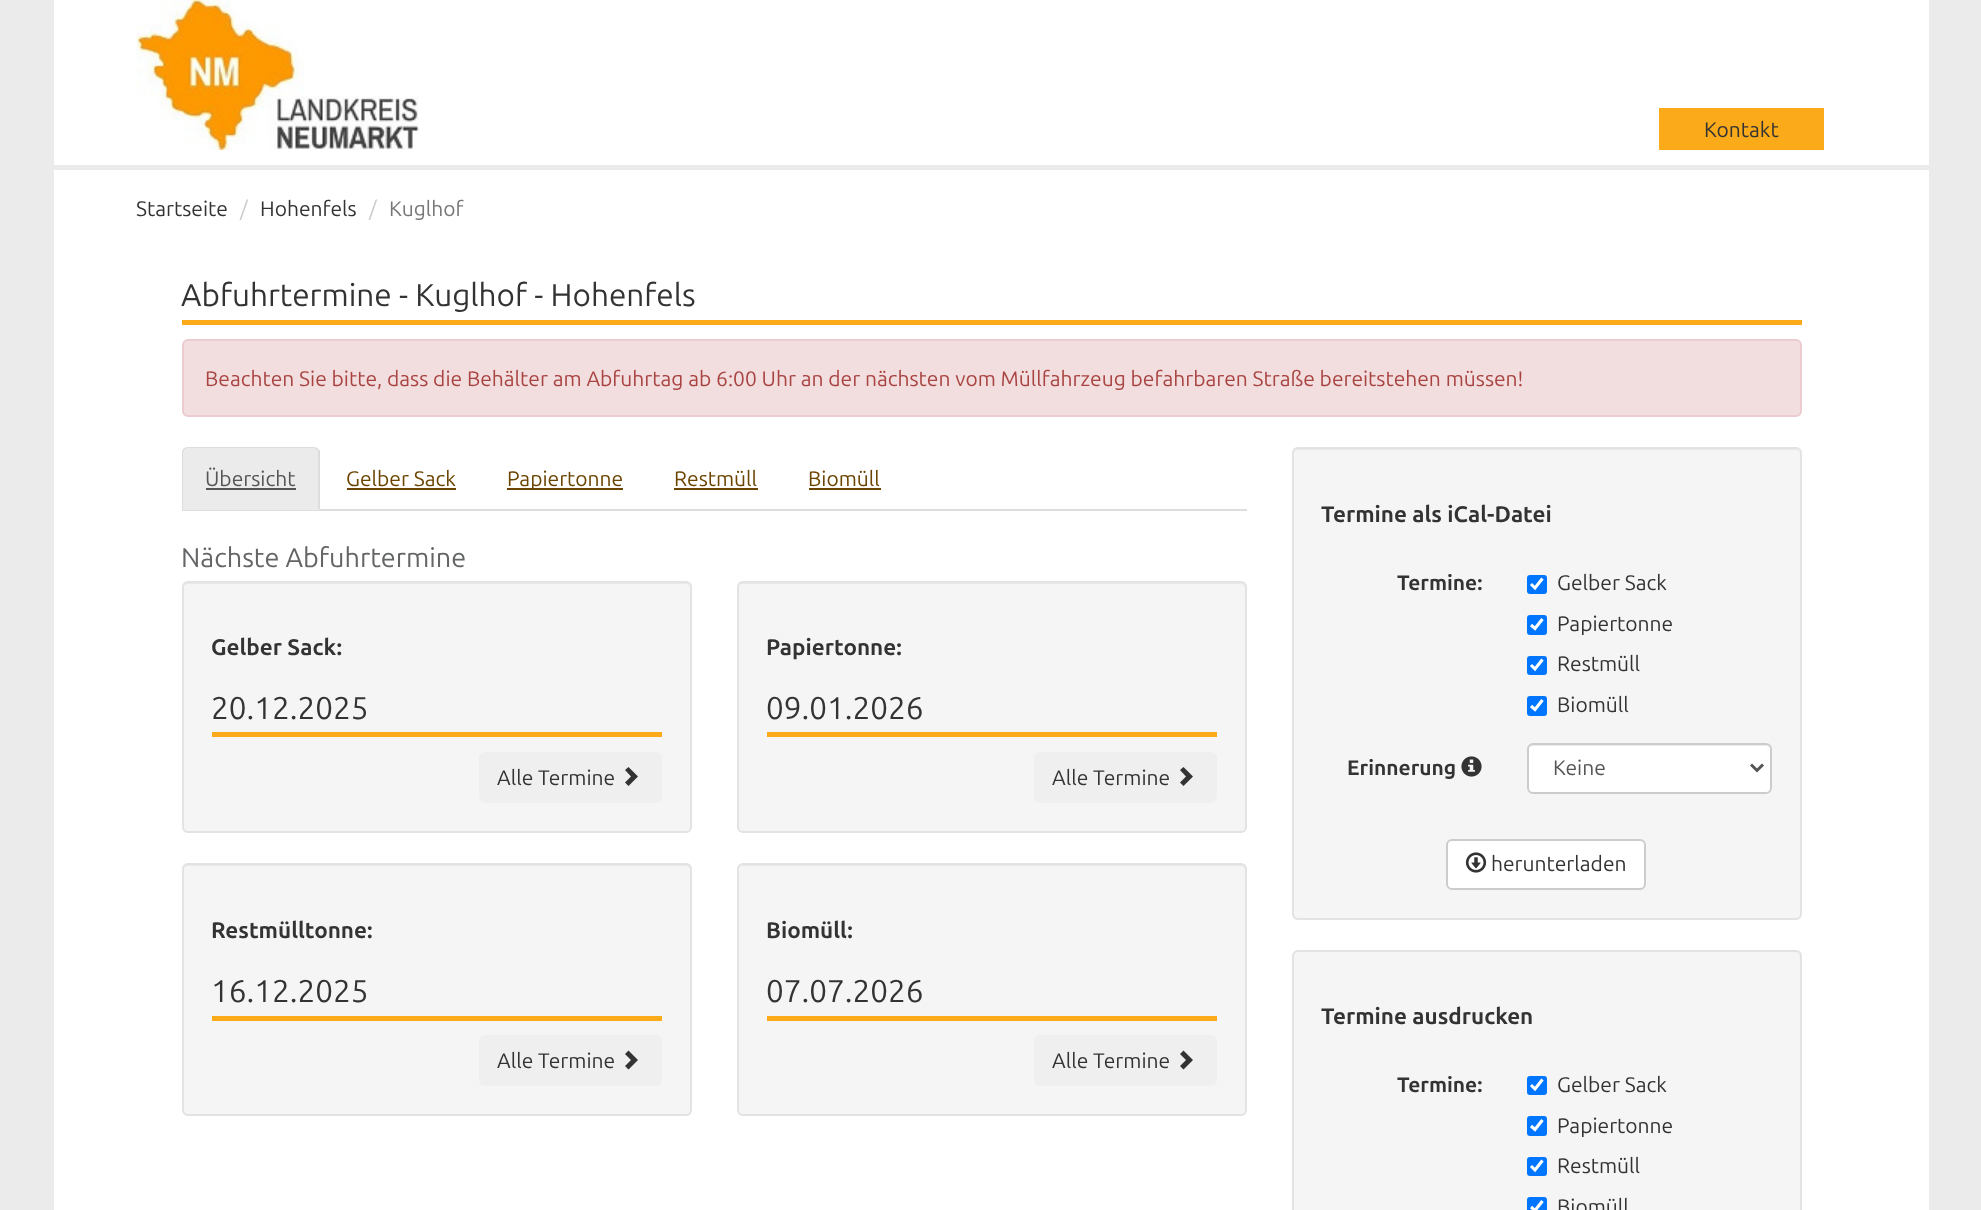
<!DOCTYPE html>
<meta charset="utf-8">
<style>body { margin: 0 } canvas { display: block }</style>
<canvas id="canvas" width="1981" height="1210"></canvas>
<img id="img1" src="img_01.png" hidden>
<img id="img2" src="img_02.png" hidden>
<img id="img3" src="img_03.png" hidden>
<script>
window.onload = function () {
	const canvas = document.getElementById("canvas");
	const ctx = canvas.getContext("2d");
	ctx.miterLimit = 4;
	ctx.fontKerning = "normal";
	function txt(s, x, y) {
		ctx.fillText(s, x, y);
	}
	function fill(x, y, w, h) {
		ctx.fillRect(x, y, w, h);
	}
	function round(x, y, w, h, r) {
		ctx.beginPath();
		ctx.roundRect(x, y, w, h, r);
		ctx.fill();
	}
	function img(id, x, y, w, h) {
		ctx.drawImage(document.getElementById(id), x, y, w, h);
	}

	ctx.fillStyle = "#EBEBEB";
	fill(0, 0, 1981, 1210);
	ctx.fillStyle = "#FFFFFF";
	fill(54, 0, 1875, 1210);
	img("img1", 136, 0, 283, 150);
	ctx.fillStyle = "#FBAA19";
	fill(1659, 108, 165, 42);
	ctx.fillStyle = "#EBEBEB";
	fill(54, 165, 1875, 5);
	ctx.fillStyle = "#FBAA19";
	fill(182, 320, 1620, 5);
	ctx.fillStyle = "#F2DEDE";
	ctx.beginPath();
	ctx.roundRect(183, 340, 1618, 76, 5);
	ctx.fill();
	ctx.strokeStyle = "#EBCCD1";
	ctx.lineWidth = 2;
	ctx.stroke();
	ctx.fillStyle = "#DDDDDD";
	fill(182, 509, 1065, 2);
	ctx.fillStyle = "#EBEBEB";
	ctx.beginPath();
	ctx.roundRect(182, 447, 138, 63, [6, 6, 0, 0]);
	ctx.fill();
	ctx.fillStyle = "#DDDDDD";
	ctx.beginPath();
	ctx.moveTo(188, 447);
	ctx.bezierCurveTo(186, 447, 184, 448, 183, 449);
	ctx.lineTo(184, 450);
	ctx.lineTo(187, 448);
	ctx.lineTo(314, 448);
	ctx.bezierCurveTo(315, 448, 316, 449, 317, 450);
	ctx.lineTo(318, 449);
	ctx.bezierCurveTo(317, 448, 315, 447, 314, 447);
	ctx.closePath();
	ctx.fill();
	ctx.beginPath();
	ctx.moveTo(320, 451);
	ctx.lineTo(320, 510);
	ctx.lineTo(318, 508);
	ctx.lineTo(318, 453);
	ctx.bezierCurveTo(318, 452, 318, 451, 317, 450);
	ctx.lineTo(318, 449);
	ctx.closePath();
	ctx.fill();
	ctx.beginPath();
	ctx.moveTo(183, 449);
	ctx.bezierCurveTo(182, 450, 182, 452, 182, 453);
	ctx.lineTo(182, 510);
	ctx.lineTo(184, 508);
	ctx.lineTo(183, 508);
	ctx.lineTo(183, 453);
	ctx.bezierCurveTo(183, 452, 183, 451, 184, 450);
	ctx.closePath();
	ctx.fill();
	ctx.fillStyle = "#555555";
	fill(206, 488, 90, 2);
	ctx.fillStyle = "#6B4400";
	fill(347, 488, 109, 2);
	fill(507, 488, 116, 2);
	fill(674, 488, 84, 2);
	fill(809, 488, 72, 2);
	ctx.fillStyle = "#F5F5F5";
	round(182, 581, 510, 252, 6);
	ctx.fillStyle = "#E9E9E9";
	ctx.beginPath();
	ctx.moveTo(188, 584);
	ctx.lineTo(686, 584);
	ctx.bezierCurveTo(688, 584, 690, 586, 690, 588);
	ctx.lineTo(690, 587);
	ctx.bezierCurveTo(690, 584, 688, 582, 685, 582);
	ctx.lineTo(188, 582);
	ctx.bezierCurveTo(185, 582, 183, 584, 183, 587);
	ctx.lineTo(183, 588);
	ctx.bezierCurveTo(183, 586, 185, 584, 188, 584);
	ctx.closePath();
	ctx.fill();
	ctx.beginPath();
	ctx.roundRect(183, 582, 508, 250, 5);
	ctx.strokeStyle = "#E3E3E3";
	ctx.stroke();
	ctx.fillStyle = "#FBAA19";
	fill(212, 732, 450, 5);
	ctx.fillStyle = "#EFEFEF";
	round(479, 752, 183, 51, 6);
	ctx.fillStyle = "#333333";
	ctx.beginPath();
	ctx.moveTo(638, 776.5);
	ctx.lineTo(628.5, 786);
	ctx.lineTo(625, 782.5);
	ctx.lineTo(631, 776.5);
	ctx.lineTo(625, 770);
	ctx.lineTo(628.5, 767);
	ctx.closePath();
	ctx.fill();
	ctx.fillStyle = "#F5F5F5";
	round(737, 581, 510, 252, 6);
	ctx.fillStyle = "#E9E9E9";
	ctx.beginPath();
	ctx.moveTo(742, 584);
	ctx.lineTo(1240, 584);
	ctx.bezierCurveTo(1243, 584, 1245, 586, 1245, 588);
	ctx.lineTo(1245, 587);
	ctx.bezierCurveTo(1245, 584, 1243, 582, 1240, 582);
	ctx.lineTo(743, 582);
	ctx.bezierCurveTo(740, 582, 738, 584, 738, 587);
	ctx.lineTo(738, 588);
	ctx.bezierCurveTo(738, 586, 740, 584, 742, 584);
	ctx.closePath();
	ctx.fill();
	ctx.beginPath();
	ctx.roundRect(738, 582, 508, 250, 5);
	ctx.stroke();
	ctx.fillStyle = "#FBAA19";
	fill(767, 732, 450, 5);
	ctx.fillStyle = "#EFEFEF";
	round(1034, 752, 183, 51, 6);
	ctx.fillStyle = "#333333";
	ctx.beginPath();
	ctx.moveTo(1193, 776.5);
	ctx.lineTo(1183.5, 786);
	ctx.lineTo(1180, 782.5);
	ctx.lineTo(1186, 776.5);
	ctx.lineTo(1180, 770);
	ctx.lineTo(1183.5, 767);
	ctx.closePath();
	ctx.fill();
	ctx.fillStyle = "#F5F5F5";
	round(182, 863, 510, 253, 6);
	ctx.fillStyle = "#E9E9E9";
	ctx.beginPath();
	ctx.moveTo(188, 866);
	ctx.lineTo(686, 866);
	ctx.bezierCurveTo(688, 866, 690, 868, 690, 870);
	ctx.lineTo(690, 869);
	ctx.bezierCurveTo(690, 866, 688, 864, 685, 864);
	ctx.lineTo(188, 864);
	ctx.bezierCurveTo(185, 864, 183, 866, 183, 869);
	ctx.lineTo(183, 870);
	ctx.bezierCurveTo(183, 868, 185, 866, 188, 866);
	ctx.closePath();
	ctx.fill();
	ctx.beginPath();
	ctx.roundRect(183, 864, 508, 251, 5);
	ctx.stroke();
	ctx.fillStyle = "#FBAA19";
	fill(212, 1016, 450, 5);
	ctx.fillStyle = "#EFEFEF";
	round(479, 1035, 183, 51, 6);
	ctx.fillStyle = "#333333";
	ctx.beginPath();
	ctx.moveTo(638, 1060);
	ctx.lineTo(628.5, 1069.5);
	ctx.lineTo(625, 1066);
	ctx.lineTo(631, 1060);
	ctx.lineTo(625, 1054);
	ctx.lineTo(628.5, 1050.5);
	ctx.closePath();
	ctx.fill();
	ctx.fillStyle = "#F5F5F5";
	round(737, 863, 510, 253, 6);
	ctx.fillStyle = "#E9E9E9";
	ctx.beginPath();
	ctx.moveTo(742, 866);
	ctx.lineTo(1240, 866);
	ctx.bezierCurveTo(1243, 866, 1245, 868, 1245, 870);
	ctx.lineTo(1245, 869);
	ctx.bezierCurveTo(1245, 866, 1243, 864, 1240, 864);
	ctx.lineTo(743, 864);
	ctx.bezierCurveTo(740, 864, 738, 866, 738, 869);
	ctx.lineTo(738, 870);
	ctx.bezierCurveTo(738, 868, 740, 866, 742, 866);
	ctx.closePath();
	ctx.fill();
	ctx.beginPath();
	ctx.roundRect(738, 864, 508, 251, 5);
	ctx.stroke();
	ctx.fillStyle = "#FBAA19";
	fill(767, 1016, 450, 5);
	ctx.fillStyle = "#EFEFEF";
	round(1034, 1035, 183, 51, 6);
	ctx.fillStyle = "#333333";
	ctx.beginPath();
	ctx.moveTo(1193, 1060);
	ctx.lineTo(1183.5, 1069.5);
	ctx.lineTo(1180, 1066);
	ctx.lineTo(1186, 1060);
	ctx.lineTo(1180, 1054);
	ctx.lineTo(1183.5, 1050.5);
	ctx.closePath();
	ctx.fill();
	ctx.fillStyle = "#F5F5F5";
	round(1292, 447, 510, 473, 6);
	ctx.fillStyle = "#E9E9E9";
	ctx.beginPath();
	ctx.moveTo(1298, 450);
	ctx.lineTo(1796, 450);
	ctx.bezierCurveTo(1798, 450, 1800, 452, 1800, 454);
	ctx.bezierCurveTo(1800, 451, 1798, 449, 1795, 449);
	ctx.lineTo(1298, 449);
	ctx.bezierCurveTo(1295, 449, 1293, 451, 1293, 454);
	ctx.bezierCurveTo(1293, 452, 1295, 450, 1298, 450);
	ctx.closePath();
	ctx.fill();
	ctx.beginPath();
	ctx.roundRect(1293, 448, 508, 471, 5);
	ctx.stroke();
	ctx.fillStyle = "#0075FF";
	round(1527, 575, 20, 19, 3);
	ctx.beginPath();
	ctx.moveTo(1531, 584);
	ctx.lineTo(1535, 588);
	ctx.lineTo(1542.5, 578.5);
	ctx.strokeStyle = "#FFFFFF";
	ctx.lineWidth = 3.1;
	ctx.stroke();
	round(1527, 615, 20, 20, 3);
	ctx.beginPath();
	ctx.moveTo(1531, 625);
	ctx.lineTo(1535, 628.5);
	ctx.lineTo(1542.5, 619);
	ctx.stroke();
	round(1527, 656, 20, 19, 3);
	ctx.beginPath();
	ctx.moveTo(1531, 665);
	ctx.lineTo(1535, 669);
	ctx.lineTo(1542.5, 659.5);
	ctx.stroke();
	round(1527, 696, 20, 20, 3);
	ctx.beginPath();
	ctx.moveTo(1531, 706);
	ctx.lineTo(1535, 709.5);
	ctx.lineTo(1542.5, 700);
	ctx.stroke();
	img("img2", 1461, 756, 21, 21);
	ctx.fillStyle = "#FFFFFF";
	round(1527, 743, 245, 51, 6);
	ctx.fillStyle = "#ECECEC";
	ctx.beginPath();
	ctx.moveTo(1533, 746);
	ctx.lineTo(1766, 746);
	ctx.bezierCurveTo(1768, 746, 1770, 748, 1770, 750);
	ctx.bezierCurveTo(1770, 747, 1768, 744, 1765, 744);
	ctx.lineTo(1533, 744);
	ctx.bezierCurveTo(1531, 744, 1530, 746, 1529, 748);
	ctx.bezierCurveTo(1530, 747, 1532, 746, 1533, 746);
	ctx.closePath();
	ctx.fill();
	ctx.beginPath();
	ctx.roundRect(1528, 744, 243, 49, 5);
	ctx.strokeStyle = "#CCCCCC";
	ctx.lineWidth = 2;
	ctx.stroke();
	ctx.beginPath();
	ctx.moveTo(1751, 764.5);
	ctx.lineTo(1757, 770.5);
	ctx.lineTo(1763, 764.5);
	ctx.strokeStyle = "#555555";
	ctx.lineWidth = 3;
	ctx.stroke();
	ctx.fillStyle = "#FFFFFF";
	ctx.beginPath();
	ctx.roundRect(1447, 840, 198, 49, 5);
	ctx.fill();
	ctx.strokeStyle = "#CCCCCC";
	ctx.lineWidth = 2;
	ctx.stroke();
	img("img3", 1465, 852, 22, 21);
	ctx.fillStyle = "#F5F5F5";
	round(1292, 950, 510, 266, 6);
	ctx.fillStyle = "#E9E9E9";
	ctx.beginPath();
	ctx.moveTo(1298, 952);
	ctx.lineTo(1796, 952);
	ctx.bezierCurveTo(1798, 952, 1800, 955, 1800, 957);
	ctx.lineTo(1800, 956);
	ctx.bezierCurveTo(1800, 953, 1798, 951, 1795, 951);
	ctx.lineTo(1298, 951);
	ctx.bezierCurveTo(1295, 951, 1293, 953, 1293, 956);
	ctx.lineTo(1293, 957);
	ctx.bezierCurveTo(1293, 955, 1295, 952, 1298, 952);
	ctx.closePath();
	ctx.fill();
	ctx.beginPath();
	ctx.roundRect(1293, 951, 508, 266, 5);
	ctx.strokeStyle = "#E3E3E3";
	ctx.stroke();
	ctx.fillStyle = "#0075FF";
	round(1527, 1076, 20, 19, 3);
	ctx.beginPath();
	ctx.moveTo(1531, 1085);
	ctx.lineTo(1535, 1089);
	ctx.lineTo(1542.5, 1079.5);
	ctx.strokeStyle = "#FFFFFF";
	ctx.lineWidth = 3.1;
	ctx.stroke();
	round(1527, 1116, 20, 20, 3);
	ctx.beginPath();
	ctx.moveTo(1531, 1126);
	ctx.lineTo(1535, 1129.5);
	ctx.lineTo(1542.5, 1120);
	ctx.stroke();
	round(1527, 1157, 20, 19, 3);
	ctx.beginPath();
	ctx.moveTo(1531, 1166);
	ctx.lineTo(1535, 1170);
	ctx.lineTo(1542.5, 1160.5);
	ctx.stroke();
	round(1527, 1197, 20, 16, 3);
	ctx.beginPath();
	ctx.moveTo(1531, 1207);
	ctx.lineTo(1535, 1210.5);
	ctx.lineTo(1542.5, 1201);
	ctx.stroke();
	ctx.font = "21px Ubuntu";
	ctx.fillStyle = "#333333";
	txt("Kontakt", 1704, 137);
	txt("Startseite", 136, 216);
	ctx.fillStyle = "#CCCCCC";
	txt("/", 240, 216);
	ctx.fillStyle = "#333333";
	txt("Hohenfels", 260, 216);
	ctx.fillStyle = "#CCCCCC";
	txt("/", 369, 216);
	ctx.fillStyle = "#777777";
	txt("Kuglhof", 389, 216);
	ctx.font = "31.5px Ubuntu";
	ctx.fillStyle = "#333333";
	txt("Abfuhrtermine - Kuglhof - Hohenfels", 181, 306);
	ctx.font = "21px Ubuntu";
	ctx.fillStyle = "#A94442";
	txt("Beachten Sie bitte, dass die Behälter am Abfuhrtag ab 6:00 Uhr an der nächsten vom Müllfahrzeug befahrbaren Straße bereitstehen müssen!", 205, 386);
	ctx.fillStyle = "#555555";
	txt("Übersicht", 205, 486);
	ctx.fillStyle = "#6B4400";
	txt("Gelber Sack", 346, 486);
	txt("Papiertonne", 507, 486);
	txt("Restmüll", 674, 486);
	txt("Biomüll", 808, 486);
	ctx.font = "27px Ubuntu";
	ctx.fillStyle = "#646567";
	txt("Nächste Abfuhrtermine", 181, 567);
	ctx.font = "bold 22.5px Ubuntu";
	ctx.fillStyle = "#333333";
	txt("Gelber Sack:", 211, 655);
	ctx.font = "31.5px Ubuntu";
	txt("20.12.2025", 211, 719);
	ctx.font = "21px Ubuntu";
	txt("Alle Termine", 497, 785);
	ctx.font = "bold 22.5px Ubuntu";
	txt("Papiertonne:", 766, 655);
	ctx.font = "31.5px Ubuntu";
	txt("09.01.2026", 766, 719);
	ctx.font = "21px Ubuntu";
	txt("Alle Termine", 1052, 785);
	ctx.font = "bold 22.5px Ubuntu";
	txt("Restmülltonne:", 211, 938);
	ctx.font = "31.5px Ubuntu";
	txt("16.12.2025", 211, 1002);
	ctx.font = "21px Ubuntu";
	txt("Alle Termine", 497, 1068);
	ctx.font = "bold 22.5px Ubuntu";
	txt("Biomüll:", 766, 938);
	ctx.font = "31.5px Ubuntu";
	txt("07.07.2026", 766, 1002);
	ctx.font = "21px Ubuntu";
	txt("Alle Termine", 1052, 1068);
	ctx.font = "bold 22.5px Ubuntu";
	txt("Termine als iCal-Datei", 1321, 522);
	ctx.font = "bold 21px Ubuntu";
	txt("Termine:", 1397, 590);
	ctx.font = "21px Ubuntu";
	txt("Gelber Sack", 1557, 590);
	txt("Papiertonne", 1557, 631);
	txt("Restmüll", 1557, 671);
	txt("Biomüll", 1557, 712);
	ctx.font = "bold 21px Ubuntu";
	txt("Erinnerung", 1347, 775);
	ctx.font = "21px Ubuntu";
	ctx.fillStyle = "#555555";
	txt("Keine", 1553, 775);
	ctx.fillStyle = "#333333";
	txt("herunterladen", 1491, 871);
	ctx.font = "bold 22.5px Ubuntu";
	txt("Termine ausdrucken", 1321, 1024);
	ctx.font = "bold 21px Ubuntu";
	txt("Termine:", 1397, 1092);
	ctx.font = "21px Ubuntu";
	txt("Gelber Sack", 1557, 1092);
	txt("Papiertonne", 1557, 1133);
	txt("Restmüll", 1557, 1173);
	txt("Biomüll", 1557, 1214);
};
</script>
